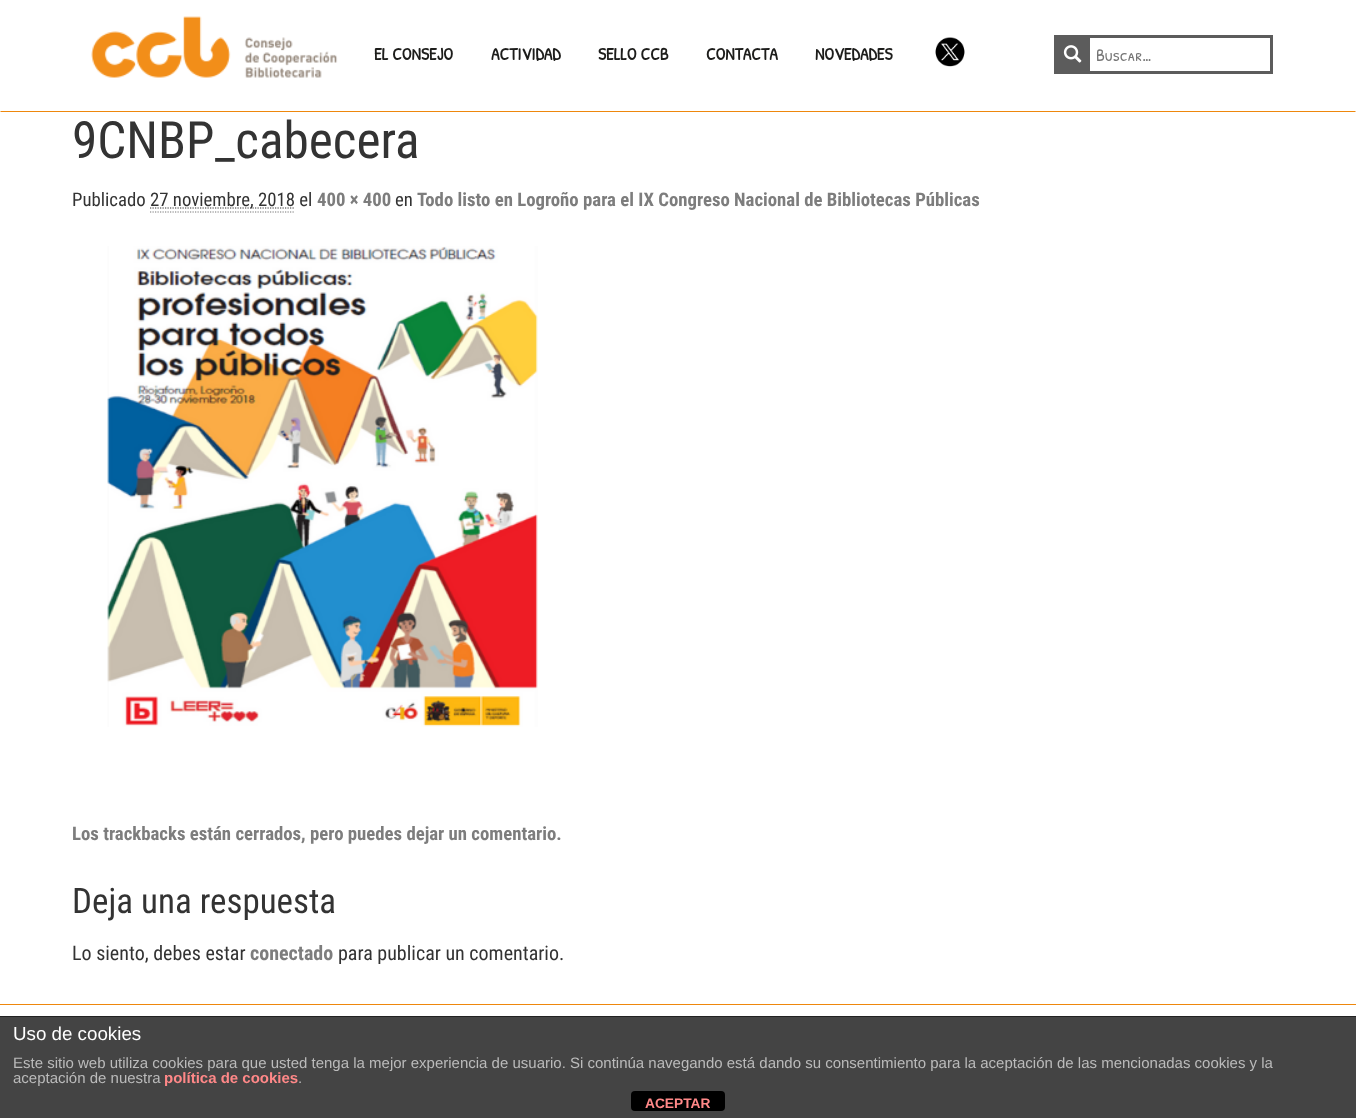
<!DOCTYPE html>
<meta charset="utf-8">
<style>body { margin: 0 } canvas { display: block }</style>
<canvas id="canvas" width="1356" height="1118"></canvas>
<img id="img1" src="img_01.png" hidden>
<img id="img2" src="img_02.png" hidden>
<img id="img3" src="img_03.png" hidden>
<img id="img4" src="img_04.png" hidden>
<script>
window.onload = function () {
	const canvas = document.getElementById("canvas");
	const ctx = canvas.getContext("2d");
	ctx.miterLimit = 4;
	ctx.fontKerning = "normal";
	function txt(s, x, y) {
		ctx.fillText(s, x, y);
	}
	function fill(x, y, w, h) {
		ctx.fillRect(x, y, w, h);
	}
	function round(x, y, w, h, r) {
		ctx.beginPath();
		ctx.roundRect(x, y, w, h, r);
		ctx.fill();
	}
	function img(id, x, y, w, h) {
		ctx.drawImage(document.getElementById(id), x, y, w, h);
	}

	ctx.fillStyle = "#FFFFFF";
	fill(0, 0, 1356, 1118);
	ctx.fillStyle = "#EE870C";
	ctx.beginPath();
	ctx.moveTo(1356, 112);
	ctx.lineTo(0, 112);
	ctx.lineTo(1, 111);
	ctx.lineTo(1355, 111);
	ctx.closePath();
	ctx.fill();
	img("img1", 91, 16, 247, 62);
	img("img2", 935, 37, 30, 30);
	ctx.strokeStyle = "#5C5C5C";
	ctx.lineWidth = 3;
	ctx.strokeRect(1055.5, 36.5, 216, 36);
	ctx.fillStyle = "#5C5C5C";
	fill(1057, 38, 33, 33);
	img("img3", 1063, 45, 19, 18);
	ctx.beginPath();
	ctx.moveTo(150, 212);
	ctx.lineTo(295, 212);
	ctx.strokeStyle = "#777777";
	ctx.lineWidth = 1.2;
	ctx.setLineDash([1.25, 1.25]);
	ctx.stroke();
	ctx.beginPath();
	ctx.moveTo(150, 208);
	ctx.lineTo(295, 208);
	ctx.strokeStyle = "#333333";
	ctx.stroke();
	img("img4", 107, 246, 431, 481);
	ctx.fillStyle = "#EE870C";
	fill(0, 1004, 1356, 1);
	ctx.fillStyle = "#444444";
	fill(0, 1017, 1356, 101);
	ctx.fillStyle = "#222222";
	fill(0, 1016, 1356, 1);
	ctx.fillStyle = "#000000";
	round(631, 1091, 94, 20, 4);
	ctx.font = "bold 17.5px Patrick Hand SC";
	ctx.fillStyle = "#1D1D1B";
	txt("EL CONSEJO", 374, 60);
	txt("ACTIVIDAD", 491, 60);
	txt("SELLO CCB", 598, 60);
	txt("CONTACTA", 706, 60);
	txt("NOVEDADES", 815, 60);
	ctx.font = "17.5px Patrick Hand SC";
	ctx.fillStyle = "#757575";
	txt("Buscar…", 1096, 61);
	ctx.font = "51.25px Roboto Condensed";
	ctx.fillStyle = "#333333";
	txt("9CNBP_cabecera", 72, 158);
	ctx.font = "18.75px Roboto Condensed";
	txt("Publicado", 72, 206);
	txt("27 noviembre, 2018 el", 150, 206);
	ctx.font = "bold 18.75px Roboto Condensed";
	ctx.fillStyle = "#7D7D7D";
	txt("400 × 400", 317, 206);
	ctx.font = "18.75px Roboto Condensed";
	ctx.fillStyle = "#333333";
	txt("en", 395, 206);
	ctx.font = "bold 18.75px Roboto Condensed";
	ctx.fillStyle = "#7D7D7D";
	txt("Todo listo en Logroño para el IX Congreso Nacional de Bibliotecas Públicas", 417, 206);
	txt("Los trackbacks están cerrados, pero puedes dejar un comentario.", 72, 840);
	ctx.font = "35px Roboto Condensed";
	ctx.fillStyle = "#333333";
	txt("Deja una respuesta", 72, 913);
	ctx.font = "20px Roboto Condensed";
	txt("Lo siento, debes estar", 72, 960);
	ctx.font = "bold 20px Roboto Condensed";
	ctx.fillStyle = "#7D7D7D";
	txt("conectado", 250, 960);
	ctx.font = "20px Roboto Condensed";
	ctx.fillStyle = "#333333";
	txt("para publicar un comentario.", 338, 960);
	ctx.font = "18.75px Liberation Sans";
	ctx.fillStyle = "#FFFFFF";
	txt("Uso de cookies", 13, 1040);
	ctx.font = "15px Liberation Sans";
	ctx.fillStyle = "#BBBBBB";
	txt("Este sitio web utiliza cookies para que usted tenga la mejor experiencia de usuario. Si continúa navegando está dando su consentimiento para la aceptación de las mencionadas cookies y la", 13, 1068);
	txt("aceptación de nuestra", 13, 1083);
	ctx.font = "bold 15px Liberation Sans";
	ctx.fillStyle = "#FF8888";
	txt("política de cookies", 164, 1083);
	ctx.font = "15px Liberation Sans";
	ctx.fillStyle = "#BBBBBB";
	txt(".", 298, 1083);
	ctx.font = "bold 13.75px Liberation Sans";
	ctx.fillStyle = "#FF8888";
	txt("ACEPTAR", 645, 1108);
};
</script>
